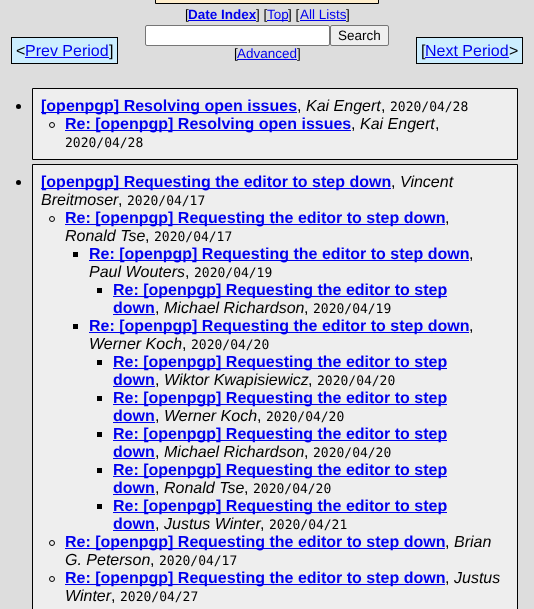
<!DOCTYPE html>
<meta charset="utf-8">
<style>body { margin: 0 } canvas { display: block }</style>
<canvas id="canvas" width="534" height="609"></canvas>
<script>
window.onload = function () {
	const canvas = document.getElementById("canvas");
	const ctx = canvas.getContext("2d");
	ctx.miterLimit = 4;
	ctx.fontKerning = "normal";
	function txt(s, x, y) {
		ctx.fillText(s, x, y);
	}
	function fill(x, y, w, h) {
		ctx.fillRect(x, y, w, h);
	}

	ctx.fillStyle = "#DDDDDD";
	fill(0, 0, 534, 609);
	ctx.fillStyle = "#FFEECC";
	ctx.beginPath();
	ctx.rect(155.5, -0.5, 223, 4);
	ctx.fill();
	ctx.strokeStyle = "#000000";
	ctx.stroke();
	ctx.fillStyle = "#0000EE";
	fill(267, 20, 21, 1);
	fill(300, 20, 46, 1);
	ctx.fillStyle = "#CCEEFF";
	fill(12, 38, 105, 25);
	ctx.fillStyle = "#000000";
	fill(11, 37, 107, 1);
	fill(11, 63, 98, 1);
	fill(11, 37, 1, 27);
	fill(117, 37, 1, 27);
	fill(109, 63, 9, 1);
	ctx.fillStyle = "#0000EE";
	fill(25, 57, 84, 1);
	ctx.fillStyle = "#FFFFFF";
	ctx.beginPath();
	ctx.roundRect(145.5, 25.5, 184, 20, 1.5);
	ctx.fill();
	ctx.strokeStyle = "#767676";
	ctx.stroke();
	ctx.fillStyle = "#EFEFEF";
	ctx.beginPath();
	ctx.roundRect(330.5, 25.5, 58, 20, 1.5);
	ctx.fill();
	ctx.stroke();
	ctx.fillStyle = "#000000";
	fill(416, 63, 93, 1);
	fill(416, 37, 107, 1);
	fill(416, 37, 1, 27);
	ctx.fillStyle = "#CCEEFF";
	fill(417, 38, 105, 25);
	ctx.fillStyle = "#0000EE";
	fill(425, 57, 84, 1);
	ctx.fillStyle = "#000000";
	fill(522, 37, 1, 27);
	fill(509, 63, 14, 1);
	ctx.beginPath();
	ctx.arc(18.5, 106.5, 2.5, 0, Math.PI * 2);
	ctx.fill();
	ctx.fillStyle = "#EEEEEE";
	ctx.beginPath();
	ctx.rect(32.5, 88.5, 485, 71);
	ctx.fill();
	ctx.strokeStyle = "#000000";
	ctx.stroke();
	ctx.fillStyle = "#0000EE";
	fill(41, 112, 256, 1);
	ctx.beginPath();
	ctx.arc(52, 125, 2.5, 0, Math.PI * 2);
	ctx.stroke();
	fill(65, 130, 286, 1);
	ctx.fillStyle = "#000000";
	ctx.beginPath();
	ctx.arc(18.5, 182.5, 2.5, 0, Math.PI * 2);
	ctx.fill();
	ctx.fillStyle = "#EEEEEE";
	ctx.beginPath();
	ctx.rect(32.5, 164.5, 485, 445);
	ctx.fill();
	ctx.stroke();
	ctx.fillStyle = "#0000EE";
	fill(41, 188, 350, 1);
	ctx.beginPath();
	ctx.arc(52, 219, 2.5, 0, Math.PI * 2);
	ctx.stroke();
	fill(65, 224, 380, 1);
	ctx.fillStyle = "#000000";
	fill(73, 252, 5, 5);
	ctx.fillStyle = "#0000EE";
	fill(89, 260, 380, 1);
	ctx.fillStyle = "#000000";
	fill(97, 288, 5, 5);
	ctx.fillStyle = "#0000EE";
	fill(113, 296, 334, 1);
	fill(113, 314, 42, 1);
	ctx.fillStyle = "#000000";
	fill(73, 324, 5, 5);
	ctx.fillStyle = "#0000EE";
	fill(89, 332, 380, 1);
	ctx.fillStyle = "#000000";
	fill(97, 360, 5, 5);
	ctx.fillStyle = "#0000EE";
	fill(113, 368, 334, 1);
	fill(113, 386, 42, 1);
	ctx.fillStyle = "#000000";
	fill(97, 396, 5, 5);
	ctx.fillStyle = "#0000EE";
	fill(113, 404, 334, 1);
	fill(113, 422, 42, 1);
	ctx.fillStyle = "#000000";
	fill(97, 432, 5, 5);
	ctx.fillStyle = "#0000EE";
	fill(113, 440, 334, 1);
	fill(113, 458, 42, 1);
	ctx.fillStyle = "#000000";
	fill(97, 468, 5, 5);
	ctx.fillStyle = "#0000EE";
	fill(113, 476, 334, 1);
	fill(113, 494, 42, 1);
	ctx.fillStyle = "#000000";
	fill(97, 504, 5, 5);
	ctx.fillStyle = "#0000EE";
	fill(113, 512, 334, 1);
	fill(113, 530, 42, 1);
	ctx.beginPath();
	ctx.arc(52, 543, 2.5, 0, Math.PI * 2);
	ctx.stroke();
	fill(65, 548, 380, 1);
	ctx.beginPath();
	ctx.arc(52, 579, 2.5, 0, Math.PI * 2);
	ctx.stroke();
	fill(65, 584, 380, 1);
	ctx.font = "13.5px Liberation Sans";
	ctx.fillStyle = "#000000";
	txt("[", 185, 19);
	ctx.fillStyle = "#0000EE";
	fill(188, 20, 68, 1);
	ctx.font = "bold 13.5px Liberation Sans";
	txt("Date Index", 188, 19);
	ctx.font = "13.5px Liberation Sans";
	ctx.fillStyle = "#000000";
	txt("] [", 256, 19);
	ctx.fillStyle = "#0000EE";
	txt("Top", 267, 19);
	ctx.fillStyle = "#000000";
	txt("] [", 288, 19);
	ctx.fillStyle = "#0000EE";
	txt("All Lists", 300, 19);
	ctx.fillStyle = "#000000";
	txt("]", 346, 19);
	ctx.font = "16px Liberation Sans";
	txt("<", 16, 56);
	ctx.fillStyle = "#0000EE";
	txt("Prev Period", 25, 56);
	ctx.fillStyle = "#000000";
	txt("]", 109, 56);
	ctx.font = "13.5px Liberation Sans";
	txt("Search", 338, 40);
	txt("[", 234, 58);
	ctx.fillStyle = "#0000EE";
	fill(237, 59, 60, 1);
	txt("Advanced", 237, 58);
	ctx.fillStyle = "#000000";
	txt("]", 297, 58);
	ctx.font = "16px Liberation Sans";
	txt("[", 421, 56);
	ctx.fillStyle = "#0000EE";
	txt("Next Period", 425, 56);
	ctx.fillStyle = "#000000";
	txt(">", 509, 56);
	ctx.font = "bold 16px Liberation Sans";
	ctx.fillStyle = "#0000EE";
	txt("[openpgp] Resolving open issues", 41, 111);
	ctx.font = "16px Liberation Sans";
	ctx.fillStyle = "#000000";
	txt(",", 297, 111);
	ctx.font = "italic 16px Liberation Sans";
	txt("Kai Engert", 306, 111);
	ctx.font = "16px Liberation Sans";
	txt(",", 381, 111);
	ctx.font = "13px DejaVu Sans Mono";
	txt("2020/04/28", 390, 111);
	ctx.font = "bold 16px Liberation Sans";
	ctx.fillStyle = "#0000EE";
	txt("Re: [openpgp] Resolving open issues", 65, 129);
	ctx.font = "italic 16px Liberation Sans";
	ctx.fillStyle = "#000000";
	txt("Kai Engert", 360, 129);
	ctx.font = "16px Liberation Sans";
	txt(",", 351, 129);
	txt(",", 435, 129);
	ctx.font = "13px DejaVu Sans Mono";
	txt("2020/04/28", 65, 147);
	ctx.font = "bold 16px Liberation Sans";
	ctx.fillStyle = "#0000EE";
	txt("[openpgp] Requesting the editor to step down", 41, 187);
	ctx.font = "16px Liberation Sans";
	ctx.fillStyle = "#000000";
	txt(",", 391, 187);
	ctx.font = "italic 16px Liberation Sans";
	txt("Vincent", 400, 187);
	txt("Breitmoser", 41, 205);
	ctx.font = "16px Liberation Sans";
	txt(",", 118, 205);
	ctx.font = "13px DejaVu Sans Mono";
	txt("2020/04/17", 127, 205);
	ctx.font = "bold 16px Liberation Sans";
	ctx.fillStyle = "#0000EE";
	txt("Re: [openpgp] Requesting the editor to step down", 65, 223);
	ctx.font = "16px Liberation Sans";
	ctx.fillStyle = "#000000";
	txt(",", 445, 223);
	ctx.font = "italic 16px Liberation Sans";
	txt("Ronald Tse", 65, 241);
	ctx.font = "16px Liberation Sans";
	txt(",", 145, 241);
	ctx.font = "13px DejaVu Sans Mono";
	txt("2020/04/17", 154, 241);
	ctx.font = "bold 16px Liberation Sans";
	ctx.fillStyle = "#0000EE";
	txt("Re: [openpgp] Requesting the editor to step down", 89, 259);
	ctx.font = "16px Liberation Sans";
	ctx.fillStyle = "#000000";
	txt(",", 469, 259);
	ctx.font = "italic 16px Liberation Sans";
	txt("Paul Wouters", 89, 277);
	ctx.font = "16px Liberation Sans";
	txt(",", 185, 277);
	ctx.font = "13px DejaVu Sans Mono";
	txt("2020/04/19", 194, 277);
	ctx.font = "bold 16px Liberation Sans";
	ctx.fillStyle = "#0000EE";
	txt("Re: [openpgp] Requesting the editor to step", 113, 295);
	txt("down", 113, 313);
	ctx.font = "16px Liberation Sans";
	ctx.fillStyle = "#000000";
	txt(",", 155, 313);
	ctx.font = "italic 16px Liberation Sans";
	txt("Michael Richardson", 164, 313);
	ctx.font = "16px Liberation Sans";
	txt(",", 304, 313);
	ctx.font = "13px DejaVu Sans Mono";
	txt("2020/04/19", 313, 313);
	ctx.font = "bold 16px Liberation Sans";
	ctx.fillStyle = "#0000EE";
	txt("Re: [openpgp] Requesting the editor to step down", 89, 331);
	ctx.font = "16px Liberation Sans";
	ctx.fillStyle = "#000000";
	txt(",", 469, 331);
	ctx.font = "italic 16px Liberation Sans";
	txt("Werner Koch", 89, 349);
	ctx.font = "16px Liberation Sans";
	txt(",", 182, 349);
	ctx.font = "13px DejaVu Sans Mono";
	txt("2020/04/20", 191, 349);
	ctx.font = "bold 16px Liberation Sans";
	ctx.fillStyle = "#0000EE";
	txt("Re: [openpgp] Requesting the editor to step", 113, 367);
	txt("down", 113, 385);
	ctx.font = "16px Liberation Sans";
	ctx.fillStyle = "#000000";
	txt(",", 155, 385);
	ctx.font = "italic 16px Liberation Sans";
	txt("Wiktor Kwapisiewicz", 164, 385);
	ctx.font = "16px Liberation Sans";
	txt(",", 308, 385);
	ctx.font = "13px DejaVu Sans Mono";
	txt("2020/04/20", 317, 385);
	ctx.font = "bold 16px Liberation Sans";
	ctx.fillStyle = "#0000EE";
	txt("Re: [openpgp] Requesting the editor to step", 113, 403);
	txt("down", 113, 421);
	ctx.font = "16px Liberation Sans";
	ctx.fillStyle = "#000000";
	txt(",", 155, 421);
	ctx.font = "italic 16px Liberation Sans";
	txt("Werner Koch", 164, 421);
	ctx.font = "16px Liberation Sans";
	txt(",", 257, 421);
	ctx.font = "13px DejaVu Sans Mono";
	txt("2020/04/20", 266, 421);
	ctx.font = "bold 16px Liberation Sans";
	ctx.fillStyle = "#0000EE";
	txt("Re: [openpgp] Requesting the editor to step", 113, 439);
	txt("down", 113, 457);
	ctx.font = "16px Liberation Sans";
	ctx.fillStyle = "#000000";
	txt(",", 155, 457);
	ctx.font = "italic 16px Liberation Sans";
	txt("Michael Richardson", 164, 457);
	ctx.font = "16px Liberation Sans";
	txt(",", 304, 457);
	ctx.font = "13px DejaVu Sans Mono";
	txt("2020/04/20", 313, 457);
	ctx.font = "bold 16px Liberation Sans";
	ctx.fillStyle = "#0000EE";
	txt("Re: [openpgp] Requesting the editor to step", 113, 475);
	txt("down", 113, 493);
	ctx.font = "16px Liberation Sans";
	ctx.fillStyle = "#000000";
	txt(",", 155, 493);
	ctx.font = "italic 16px Liberation Sans";
	txt("Ronald Tse", 164, 493);
	ctx.font = "16px Liberation Sans";
	txt(",", 244, 493);
	ctx.font = "13px DejaVu Sans Mono";
	txt("2020/04/20", 253, 493);
	ctx.font = "bold 16px Liberation Sans";
	ctx.fillStyle = "#0000EE";
	txt("Re: [openpgp] Requesting the editor to step", 113, 511);
	txt("down", 113, 529);
	ctx.font = "16px Liberation Sans";
	ctx.fillStyle = "#000000";
	txt(",", 155, 529);
	ctx.font = "italic 16px Liberation Sans";
	txt("Justus Winter", 164, 529);
	ctx.font = "16px Liberation Sans";
	txt(",", 260, 529);
	ctx.font = "13px DejaVu Sans Mono";
	txt("2020/04/21", 269, 529);
	ctx.font = "bold 16px Liberation Sans";
	ctx.fillStyle = "#0000EE";
	txt("Re: [openpgp] Requesting the editor to step down", 65, 547);
	ctx.font = "italic 16px Liberation Sans";
	ctx.fillStyle = "#000000";
	txt("Brian", 454, 547);
	ctx.font = "16px Liberation Sans";
	txt(",", 445, 547);
	ctx.font = "italic 16px Liberation Sans";
	txt("G. Peterson", 65, 565);
	ctx.font = "16px Liberation Sans";
	txt(",", 150, 565);
	ctx.font = "13px DejaVu Sans Mono";
	txt("2020/04/17", 159, 565);
	ctx.font = "bold 16px Liberation Sans";
	ctx.fillStyle = "#0000EE";
	txt("Re: [openpgp] Requesting the editor to step down", 65, 583);
	ctx.font = "italic 16px Liberation Sans";
	ctx.fillStyle = "#000000";
	txt("Justus", 454, 583);
	ctx.font = "16px Liberation Sans";
	txt(",", 445, 583);
	ctx.font = "italic 16px Liberation Sans";
	txt("Winter", 65, 601);
	ctx.font = "16px Liberation Sans";
	txt(",", 111, 601);
	ctx.font = "13px DejaVu Sans Mono";
	txt("2020/04/27", 120, 601);
};
</script>
